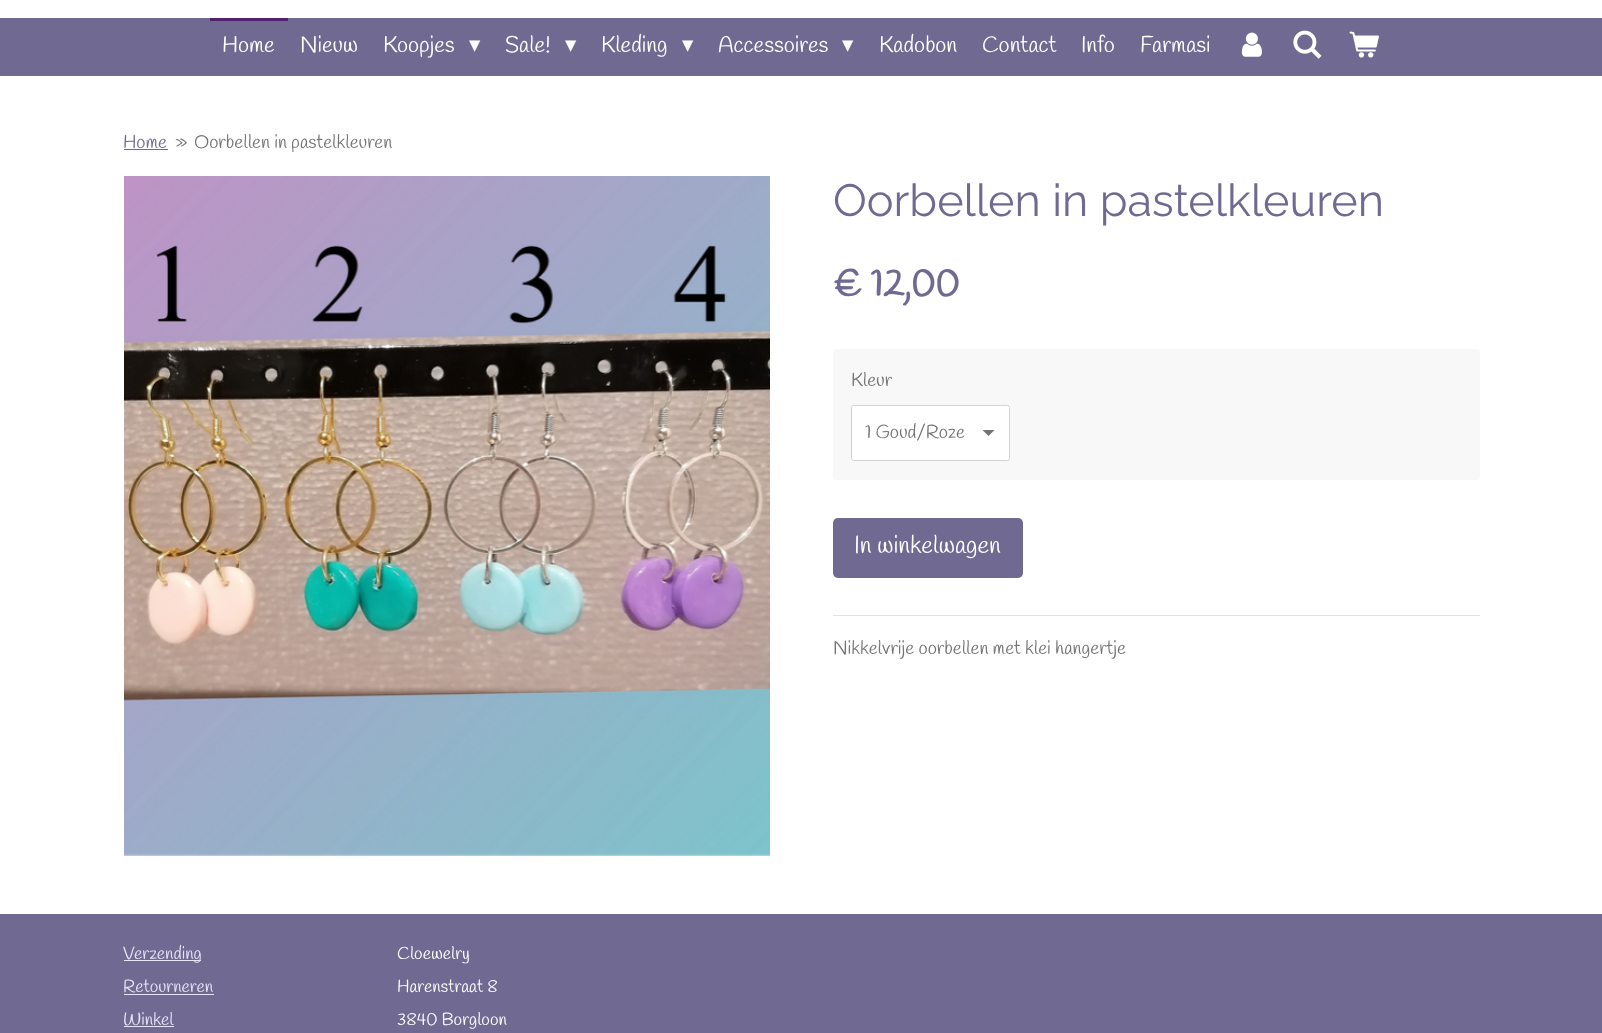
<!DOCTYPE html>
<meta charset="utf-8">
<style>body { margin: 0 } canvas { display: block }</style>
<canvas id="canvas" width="1602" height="1033"></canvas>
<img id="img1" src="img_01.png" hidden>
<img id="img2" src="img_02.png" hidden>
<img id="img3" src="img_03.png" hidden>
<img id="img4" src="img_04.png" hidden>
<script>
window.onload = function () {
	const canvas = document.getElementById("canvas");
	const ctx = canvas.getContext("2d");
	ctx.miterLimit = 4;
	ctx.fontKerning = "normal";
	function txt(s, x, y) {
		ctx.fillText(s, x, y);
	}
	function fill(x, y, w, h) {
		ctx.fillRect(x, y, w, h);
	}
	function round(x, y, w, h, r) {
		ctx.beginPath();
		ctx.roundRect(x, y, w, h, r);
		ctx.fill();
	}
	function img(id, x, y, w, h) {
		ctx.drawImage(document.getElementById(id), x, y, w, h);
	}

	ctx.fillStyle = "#FFFFFF";
	fill(0, 0, 1602, 1033);
	ctx.fillStyle = "#706A92";
	fill(0, 18, 1602, 58);
	ctx.fillStyle = "#512170";
	fill(210, 18, 78, 3);
	img("img1", 1241, 32, 21, 25);
	img("img2", 1293, 30, 29, 29);
	img("img3", 1349, 31, 30, 27);
	ctx.fillStyle = "#706A92";
	fill(124, 149, 44, 1);
	img("img4", 124, 176, 646, 680);
	ctx.fillStyle = "#F8F8F8";
	round(833, 349, 647, 131, 4);
	ctx.fillStyle = "#FFFFFF";
	round(851, 405, 159, 56, 2.5);
	ctx.fillStyle = "#737373";
	ctx.beginPath();
	ctx.moveTo(988.5, 436);
	ctx.lineTo(982.5, 430);
	ctx.lineTo(994.5, 430);
	ctx.closePath();
	ctx.fill();
	ctx.beginPath();
	ctx.roundRect(851.5, 405.5, 158, 55, 2);
	ctx.strokeStyle = "#D2D2D2";
	ctx.stroke();
	ctx.fillStyle = "#706A92";
	round(833, 518, 190, 60, 5);
	ctx.fillStyle = "#E3E3E3";
	fill(833, 615, 647, 1);
	ctx.fillStyle = "#706A92";
	fill(0, 914, 1602, 119);
	ctx.fillStyle = "#E7E4F7";
	fill(124, 960, 77, 1);
	fill(124, 994, 90, 1);
	fill(124, 1026, 50, 1);
	ctx.font = "22.5px Handlee";
	ctx.fillStyle = "#FFFFFF";
	txt("Home", 222, 52);
	txt("Nieuw", 300, 52);
	txt("Koopjes", 383, 52);
	ctx.font = "22.5px DejaVu Sans";
	txt("▾", 469, 52);
	ctx.font = "22.5px Handlee";
	txt("Sale!", 505, 52);
	ctx.font = "22.5px DejaVu Sans";
	txt("▾", 565, 52);
	ctx.font = "22.5px Handlee";
	txt("Kleding", 601, 52);
	ctx.font = "22.5px DejaVu Sans";
	txt("▾", 682, 52);
	ctx.font = "22.5px Handlee";
	txt("Accessoires", 718, 52);
	ctx.font = "22.5px DejaVu Sans";
	txt("▾", 842, 52);
	ctx.font = "22.5px Handlee";
	txt("Kadobon", 879, 52);
	txt("Contact", 982, 52);
	txt("Info", 1081, 52);
	txt("Farmasi", 1140, 52);
	ctx.font = "18.75px Handlee";
	ctx.fillStyle = "#706A92";
	txt("Home", 123, 148);
	ctx.fillStyle = "#737373";
	txt("»", 175, 148);
	txt("Oorbellen in pastelkleuren", 194, 148);
	ctx.font = "45px Raleway";
	ctx.fillStyle = "#706A92";
	txt("Oorbellen in pastelkleuren", 833, 216);
	ctx.font = "bold 37.5px Handlee";
	txt("€ 12,00", 833, 296);
	ctx.font = "18.75px Handlee";
	ctx.fillStyle = "#737373";
	txt("Kleur", 851, 386);
	txt("1 Goud/Roze", 865, 438);
	ctx.font = "24.5px Handlee";
	ctx.fillStyle = "#FFFFFF";
	txt("In winkelwagen", 854, 553);
	ctx.font = "18.75px Handlee";
	ctx.fillStyle = "#737373";
	txt("Nikkelvrije oorbellen met klei hangertje", 833, 654);
	ctx.font = "17.5px Handlee";
	ctx.fillStyle = "#E7E4F7";
	txt("Verzending", 123, 959);
	txt("Retourneren", 123, 992);
	txt("Winkel", 123, 1025);
	ctx.fillStyle = "#FFFFFF";
	txt("Cloewelry", 397, 959);
	txt("Harenstraat 8", 397, 992);
	txt("3840 Borgloon", 397, 1025);
};
</script>
